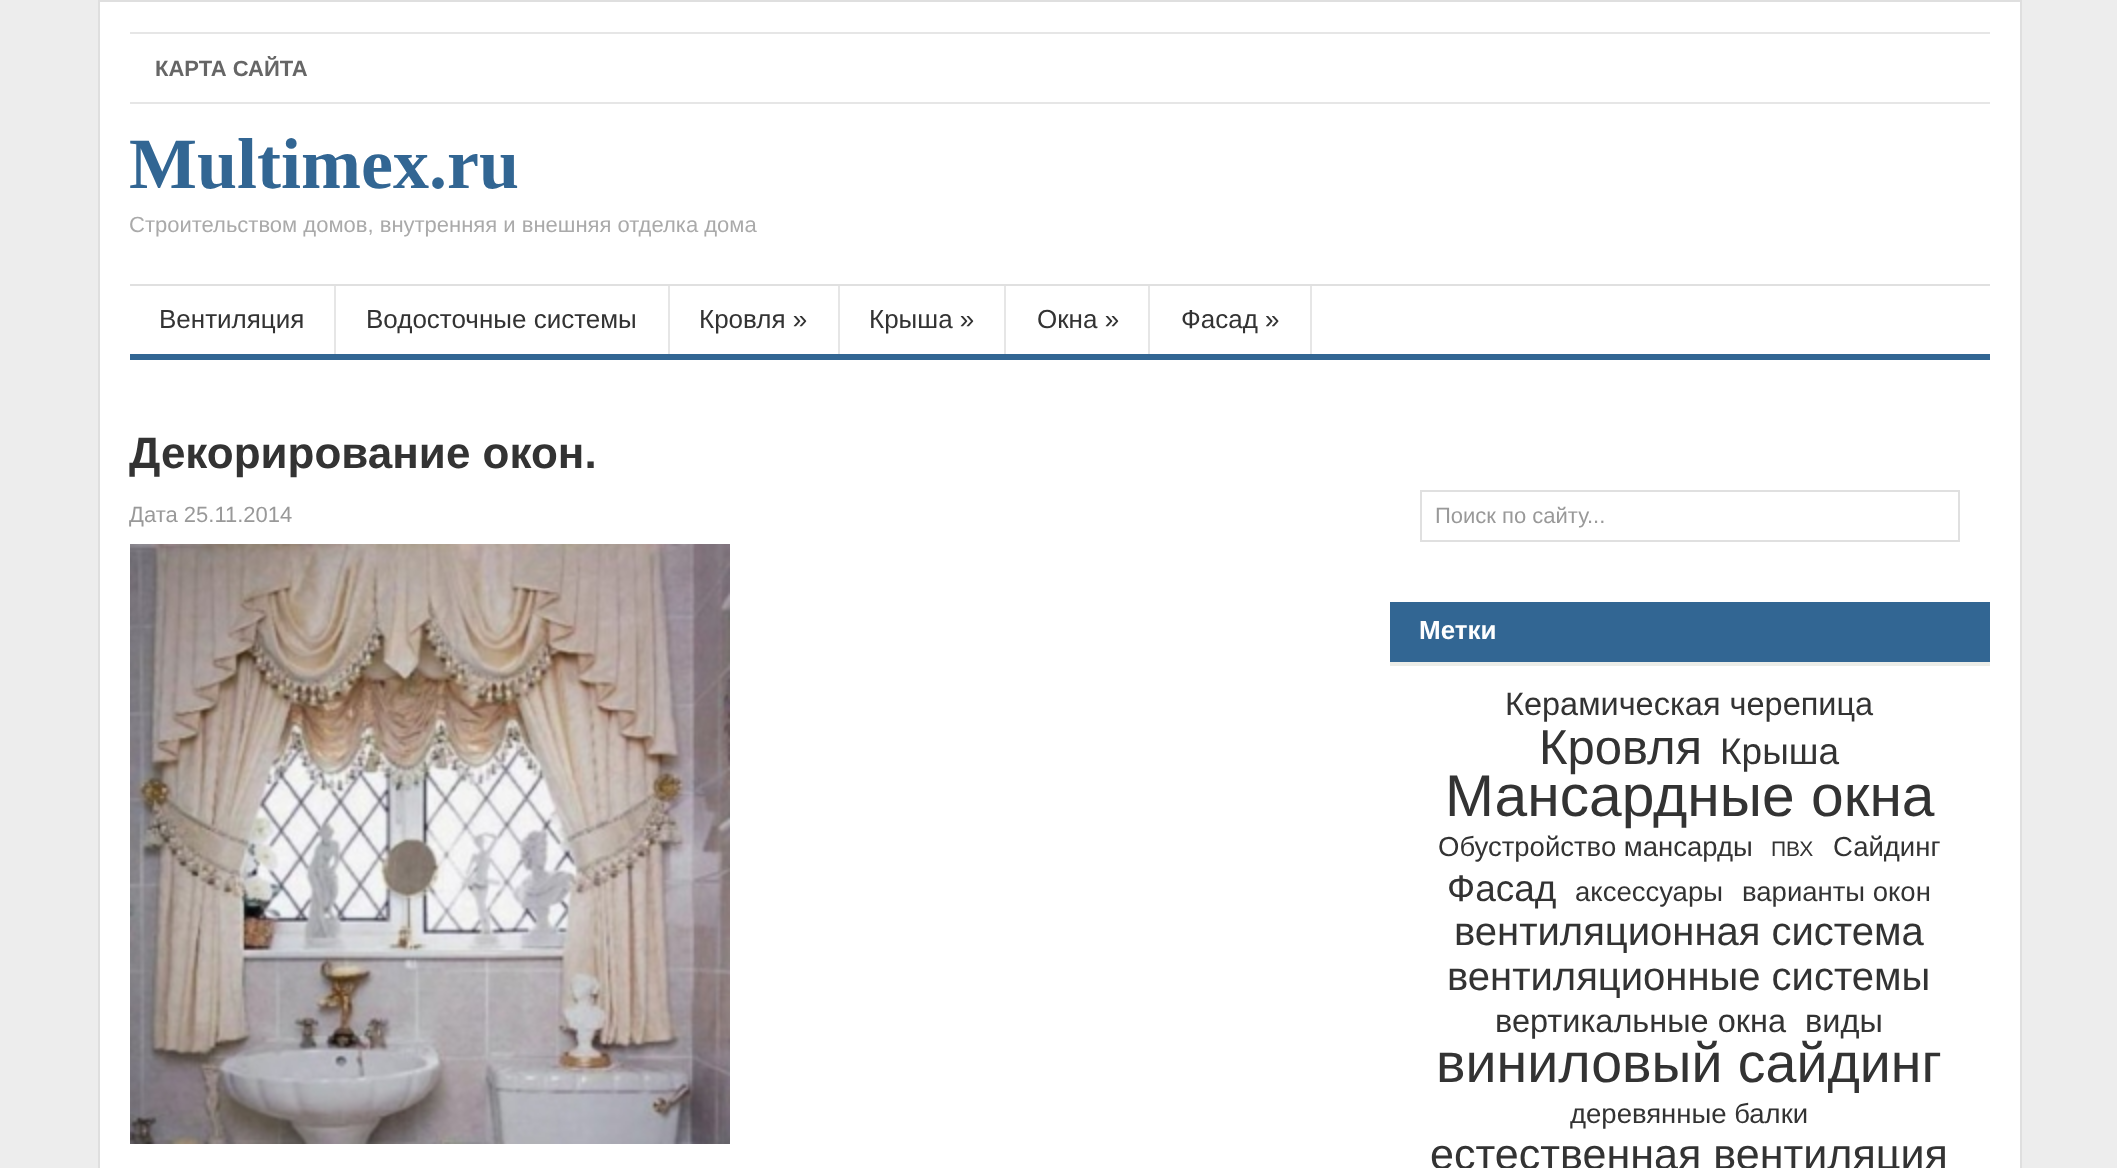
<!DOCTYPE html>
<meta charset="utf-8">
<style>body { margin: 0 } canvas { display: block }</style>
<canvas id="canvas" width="2117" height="1168"></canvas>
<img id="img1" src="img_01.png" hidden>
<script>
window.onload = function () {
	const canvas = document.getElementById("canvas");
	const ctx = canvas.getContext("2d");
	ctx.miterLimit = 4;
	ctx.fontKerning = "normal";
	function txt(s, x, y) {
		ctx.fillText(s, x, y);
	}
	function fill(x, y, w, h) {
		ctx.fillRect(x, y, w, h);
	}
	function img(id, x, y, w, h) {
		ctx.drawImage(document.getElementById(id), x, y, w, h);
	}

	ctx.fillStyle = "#EDEDED";
	fill(0, 0, 2117, 1168);
	ctx.fillStyle = "#FFFFFF";
	ctx.beginPath();
	ctx.rect(99, 1, 1922, 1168);
	ctx.fill();
	ctx.strokeStyle = "#DFDFDF";
	ctx.lineWidth = 2;
	ctx.stroke();
	ctx.fillStyle = "#E6E6E6";
	fill(130, 32, 1860, 2);
	fill(130, 102, 1860, 2);
	ctx.fillStyle = "#E0E0E0";
	fill(130, 284, 1860, 2);
	ctx.fillStyle = "#326693";
	fill(130, 354, 1860, 6);
	ctx.fillStyle = "#E6E6E6";
	fill(334, 286, 2, 68);
	fill(668, 286, 2, 68);
	fill(838, 286, 2, 68);
	fill(1004, 286, 2, 68);
	fill(1148, 286, 2, 68);
	fill(1310, 286, 2, 68);
	img("img1", 130, 544, 600, 600);
	ctx.strokeStyle = "#E0E0E0";
	ctx.strokeRect(1421, 491, 538, 50);
	ctx.fillStyle = "#326693";
	fill(1390, 602, 600, 60);
	ctx.fillStyle = "#ECEDE8";
	fill(1390, 662, 600, 4);
	ctx.font = "bold 22px Liberation Sans";
	ctx.fillStyle = "#666666";
	txt("КАРТА САЙТА", 155, 76);
	ctx.font = "bold 72px Liberation Serif";
	ctx.fillStyle = "#326693";
	txt("Multimex.ru", 129, 188);
	ctx.font = "22px Liberation Sans";
	ctx.fillStyle = "#AAAAAA";
	txt("Строительством домов, внутренняя и внешняя отделка дома", 129, 232);
	ctx.font = "26px Liberation Sans";
	ctx.fillStyle = "#333333";
	txt("Вентиляция", 159, 328);
	txt("Водосточные системы", 366, 328);
	txt("Кровля »", 699, 328);
	txt("Крыша »", 869, 328);
	txt("Окна »", 1037, 328);
	txt("Фасад »", 1181, 328);
	ctx.font = "bold 44px Liberation Sans";
	txt("Декорирование окон.", 129, 468);
	ctx.font = "22px Liberation Sans";
	ctx.fillStyle = "#999999";
	txt("Дата 25.11.2014", 129, 522);
	txt("Поиск по сайту...", 1435, 523);
	ctx.font = "bold 26px Liberation Sans";
	ctx.fillStyle = "#FFFFFF";
	txt("Метки", 1419, 639);
	ctx.font = "32.5px Liberation Sans";
	ctx.fillStyle = "#333333";
	txt("Керамическая черепица", 1505, 715);
	ctx.font = "49px Liberation Sans";
	txt("Кровля", 1539, 764);
	ctx.font = "37px Liberation Sans";
	txt("Крыша", 1720, 764);
	ctx.font = "58.75px Liberation Sans";
	txt("Мансардные окна", 1445, 816);
	ctx.font = "27.5px Liberation Sans";
	txt("Обустройство мансарды", 1438, 856);
	ctx.font = "21px Liberation Sans";
	txt("ПВХ", 1771, 856);
	ctx.font = "27.5px Liberation Sans";
	txt("Сайдинг", 1833, 856);
	ctx.font = "37px Liberation Sans";
	txt("Фасад", 1447, 901);
	ctx.font = "27.5px Liberation Sans";
	txt("аксессуары", 1575, 901);
	txt("варианты окон", 1742, 901);
	ctx.font = "40px Liberation Sans";
	txt("вентиляционная система", 1454, 945);
	txt("вентиляционные системы", 1447, 990);
	ctx.font = "32.5px Liberation Sans";
	txt("вертикальные окна", 1495, 1032);
	txt("виды", 1805, 1032);
	ctx.font = "55.5px Liberation Sans";
	txt("виниловый сайдинг", 1436, 1082);
	ctx.font = "27.5px Liberation Sans";
	txt("деревянные балки", 1570, 1123);
	ctx.font = "43.1px Liberation Sans";
	txt("естественная вентиляция", 1430, 1169);
};
</script>
